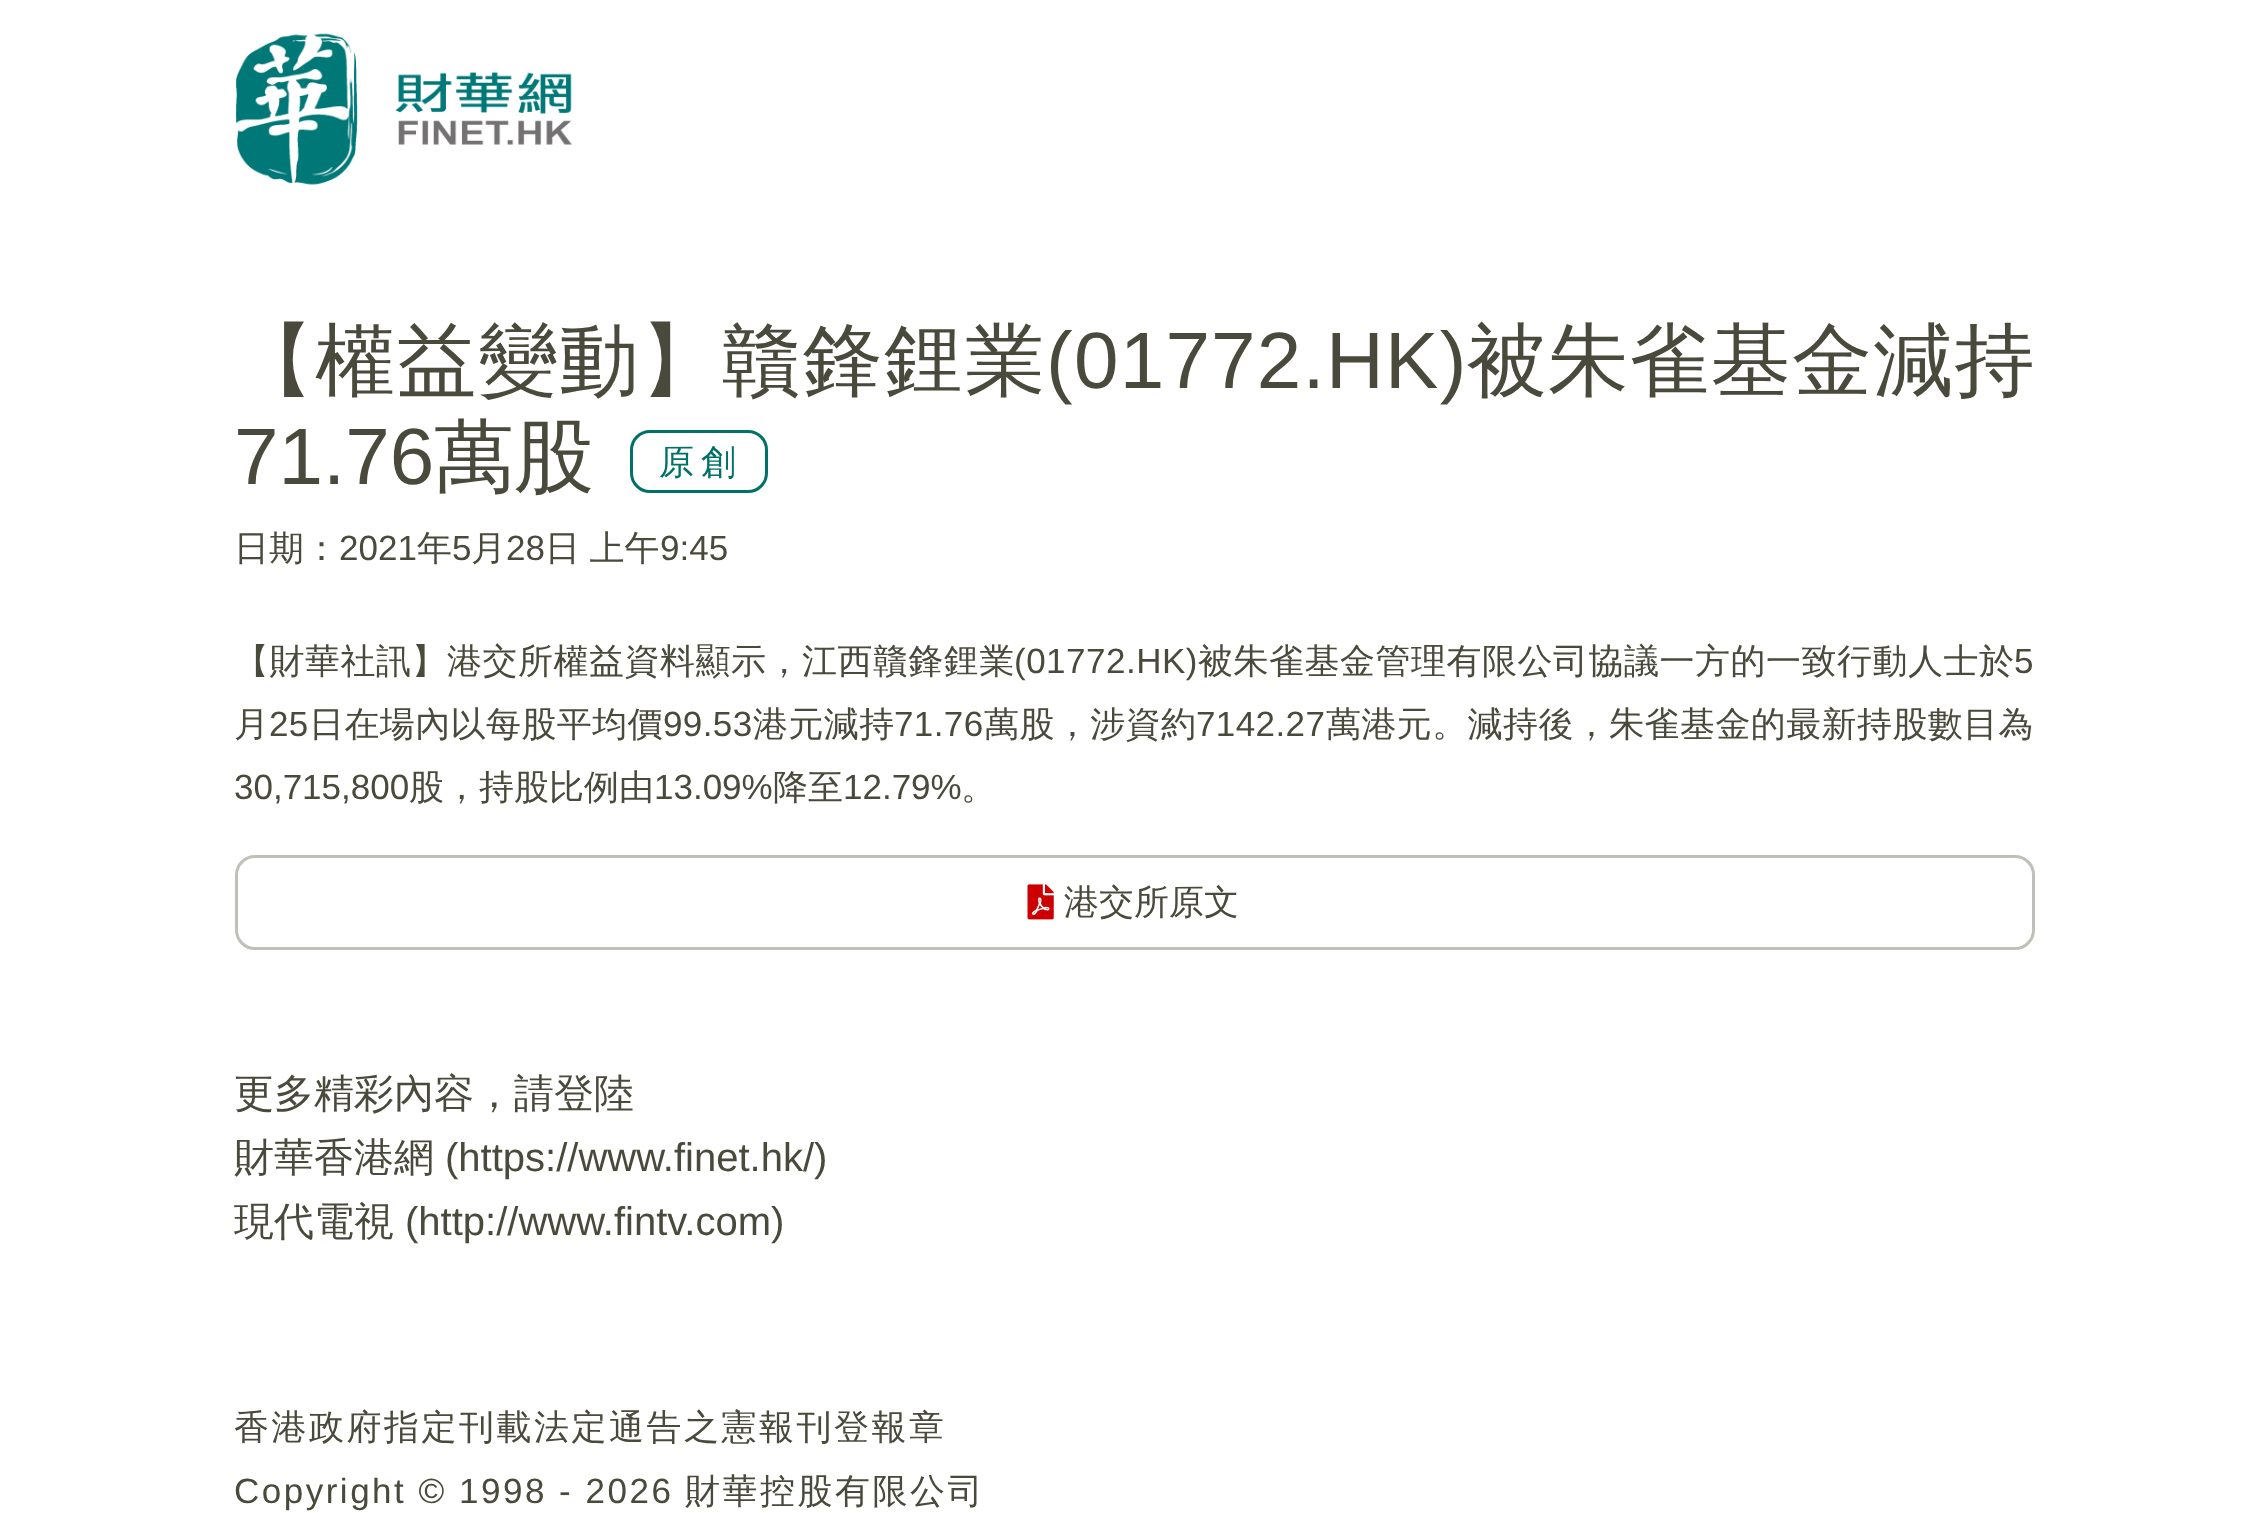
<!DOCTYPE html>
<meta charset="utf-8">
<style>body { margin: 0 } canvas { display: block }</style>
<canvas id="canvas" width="2266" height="1513"></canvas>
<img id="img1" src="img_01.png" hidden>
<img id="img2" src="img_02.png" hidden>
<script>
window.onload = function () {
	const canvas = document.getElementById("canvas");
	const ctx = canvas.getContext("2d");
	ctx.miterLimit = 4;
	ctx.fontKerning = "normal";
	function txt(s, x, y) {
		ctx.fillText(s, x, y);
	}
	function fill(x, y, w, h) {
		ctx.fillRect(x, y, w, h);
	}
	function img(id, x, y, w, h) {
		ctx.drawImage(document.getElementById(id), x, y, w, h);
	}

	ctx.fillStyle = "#FFFFFF";
	fill(0, 0, 2266, 1513);
	img("img1", 235, 33, 337, 152);
	ctx.beginPath();
	ctx.roundRect(631.5, 431.5, 135, 60, 18.5);
	ctx.strokeStyle = "#007166";
	ctx.lineWidth = 3;
	ctx.stroke();
	ctx.beginPath();
	ctx.roundRect(236.5, 856.5, 1797, 92, 18.5);
	ctx.strokeStyle = "#C0C0B8";
	ctx.stroke();
	img("img2", 1027, 884, 27, 36);
	ctx.letterSpacing = "1.25px";
	ctx.font = "500 80px WenQuanYi Zen Hei";
	ctx.fillStyle = "#4A4A3C";
	txt("【權益變動】贛鋒鋰業", 234, 388);
	ctx.font = "80px Liberation Sans";
	txt("(01772.HK)", 1046, 388);
	ctx.font = "500 80px WenQuanYi Zen Hei";
	txt("被朱雀基金減持", 1467, 388);
	ctx.letterSpacing = "0px";
	ctx.font = "80px Liberation Sans";
	txt("71.76", 234, 484);
	ctx.font = "500 80px WenQuanYi Zen Hei";
	txt("萬股", 434, 484);
	ctx.letterSpacing = "7px";
	ctx.font = "500 35px WenQuanYi Zen Hei";
	ctx.fillStyle = "#007166";
	txt("原創", 659, 474);
	ctx.letterSpacing = "0px";
	ctx.fillStyle = "#4A4A3C";
	txt("日期：", 234, 560);
	ctx.font = "35px Liberation Sans";
	txt("2021", 339, 560);
	ctx.font = "500 35px WenQuanYi Zen Hei";
	txt("年", 417, 560);
	ctx.font = "35px Liberation Sans";
	txt("5", 452, 560);
	ctx.font = "500 35px WenQuanYi Zen Hei";
	txt("月", 471, 560);
	ctx.font = "35px Liberation Sans";
	txt("28", 506, 560);
	ctx.wordSpacing = "-1px";
	ctx.font = "500 35px WenQuanYi Zen Hei";
	txt("日 上午", 545, 560);
	ctx.wordSpacing = "0px";
	ctx.font = "35px Liberation Sans";
	txt("9:45", 660, 560);
	ctx.letterSpacing = "0.5px";
	ctx.font = "500 35px WenQuanYi Zen Hei";
	txt("【財華社訊】港交所權益資料顯示，江西贛鋒鋰業", 234, 673);
	ctx.font = "35px Liberation Sans";
	txt("(01772.HK)", 1014, 673);
	ctx.font = "500 35px WenQuanYi Zen Hei";
	txt("被朱雀基金管理有限公司協議一方的一致行動人士於", 1198, 673);
	ctx.font = "35px Liberation Sans";
	txt("5", 2014, 673);
	ctx.letterSpacing = "0.4px";
	ctx.font = "500 35px WenQuanYi Zen Hei";
	txt("月", 234, 736);
	ctx.font = "35px Liberation Sans";
	txt("25", 269, 736);
	ctx.font = "500 35px WenQuanYi Zen Hei";
	txt("日在場內以每股平均價", 309, 736);
	ctx.font = "35px Liberation Sans";
	txt("99.53", 663, 736);
	ctx.font = "500 35px WenQuanYi Zen Hei";
	txt("港元減持", 753, 736);
	ctx.font = "35px Liberation Sans";
	txt("71.76", 894, 736);
	ctx.font = "500 35px WenQuanYi Zen Hei";
	txt("萬股，涉資約", 984, 736);
	ctx.font = "35px Liberation Sans";
	txt("7142.27", 1196, 736);
	ctx.font = "500 35px WenQuanYi Zen Hei";
	txt("萬港元。減持後，朱雀基金的最新持股數目為", 1326, 736);
	ctx.letterSpacing = "0px";
	ctx.font = "35px Liberation Sans";
	txt("30,715,800", 234, 799);
	ctx.font = "500 35px WenQuanYi Zen Hei";
	txt("股，持股比例由", 409, 799);
	ctx.font = "35px Liberation Sans";
	txt("13.09%", 654, 799);
	ctx.font = "500 35px WenQuanYi Zen Hei";
	txt("降至", 773, 799);
	ctx.font = "35px Liberation Sans";
	txt("12.79%", 843, 799);
	ctx.font = "500 35px WenQuanYi Zen Hei";
	txt("。", 961, 799);
	txt("港交所原文", 1064, 914);
	ctx.font = "500 40px WenQuanYi Zen Hei";
	txt("更多精彩內容，請登陸", 234, 1107);
	txt("財華香港網", 234, 1171);
	ctx.font = "40px Liberation Sans";
	txt("(https://www.finet.hk/)", 445, 1171);
	ctx.font = "500 40px WenQuanYi Zen Hei";
	txt("現代電視", 234, 1235);
	ctx.font = "40px Liberation Sans";
	txt("(http://www.fintv.com)", 405, 1235);
	ctx.letterSpacing = "2.5px";
	ctx.font = "500 35px WenQuanYi Zen Hei";
	txt("香港政府指定刊載法定通告之憲報刊登報章", 234, 1439);
	ctx.font = "35px Liberation Sans";
	txt("Copyright © 1998 - 2026", 234, 1503);
	ctx.font = "500 35px WenQuanYi Zen Hei";
	txt("財華控股有限公司", 685, 1503);
};
</script>
